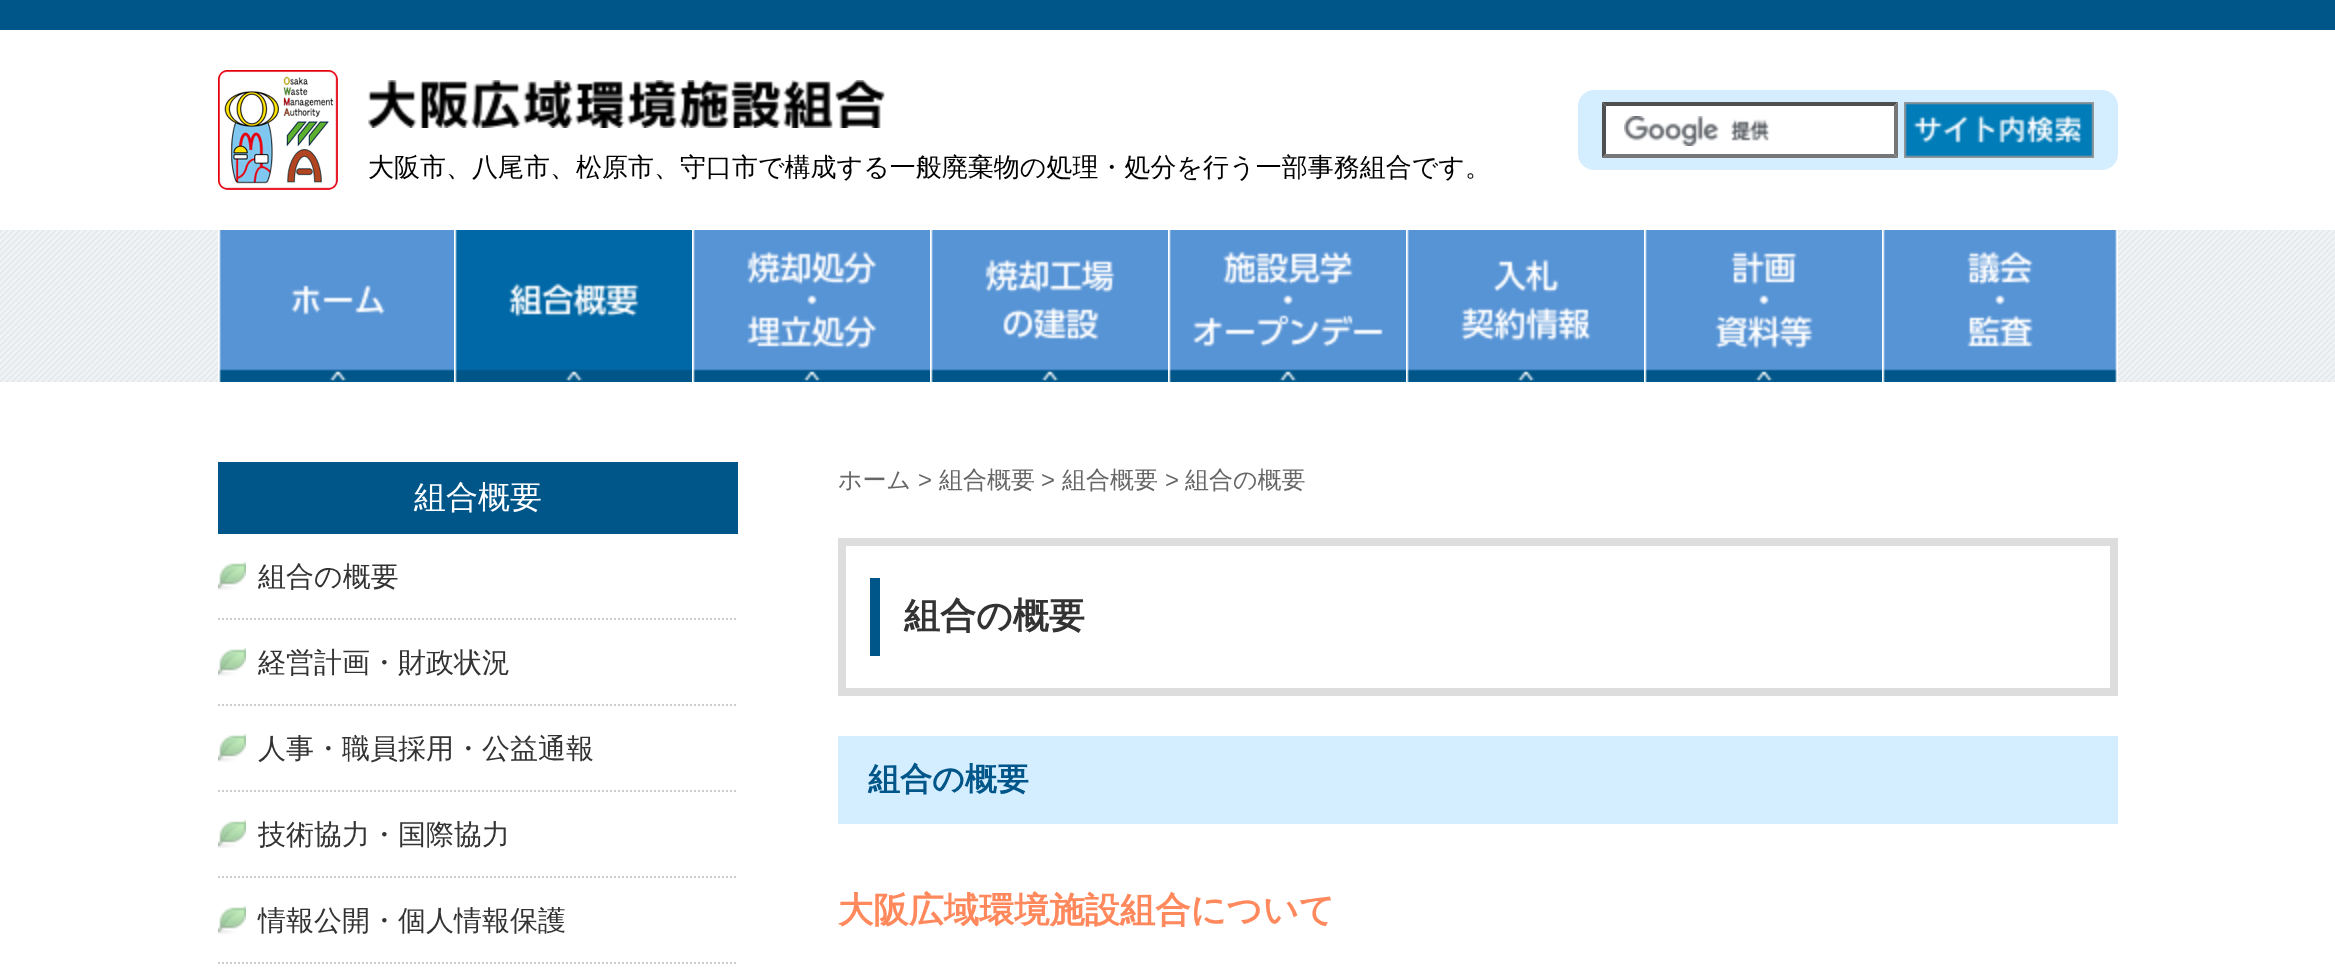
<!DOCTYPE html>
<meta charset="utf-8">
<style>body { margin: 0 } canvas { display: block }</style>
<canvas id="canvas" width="2335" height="976"></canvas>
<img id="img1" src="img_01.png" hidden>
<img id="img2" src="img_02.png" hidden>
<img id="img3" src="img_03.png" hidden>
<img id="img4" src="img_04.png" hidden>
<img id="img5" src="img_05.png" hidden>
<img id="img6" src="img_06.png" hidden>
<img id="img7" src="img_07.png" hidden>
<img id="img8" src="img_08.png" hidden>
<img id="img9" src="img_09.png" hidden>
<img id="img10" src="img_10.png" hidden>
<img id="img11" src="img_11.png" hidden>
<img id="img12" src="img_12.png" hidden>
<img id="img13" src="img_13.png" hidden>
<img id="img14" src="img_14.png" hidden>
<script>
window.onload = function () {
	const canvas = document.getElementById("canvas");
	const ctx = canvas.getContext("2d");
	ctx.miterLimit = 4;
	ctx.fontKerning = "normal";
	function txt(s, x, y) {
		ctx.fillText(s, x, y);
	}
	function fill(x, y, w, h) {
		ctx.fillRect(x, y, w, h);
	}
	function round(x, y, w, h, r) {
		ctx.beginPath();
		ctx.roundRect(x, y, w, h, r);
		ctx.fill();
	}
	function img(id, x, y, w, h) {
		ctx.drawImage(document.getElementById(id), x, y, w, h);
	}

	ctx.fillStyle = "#FFFFFF";
	fill(0, 0, 2335, 976);
	ctx.fillStyle = "#005689";
	fill(0, 0, 2335, 30);
	img("img1", 218, 70, 120, 120);
	img("img2", 368, 80, 517, 48);
	ctx.fillStyle = "#D5EEFF";
	round(1578, 90, 540, 80, 16);
	ctx.fillStyle = "#FFFFFF";
	fill(1602, 102, 296, 56);
	img("img3", 1624, 116, 146, 30);
	ctx.fillStyle = "#4F4F4F";
	ctx.beginPath();
	ctx.moveTo(1602, 102);
	ctx.lineTo(1898, 102);
	ctx.lineTo(1894, 106);
	ctx.lineTo(1606, 106);
	ctx.closePath();
	ctx.fill();
	ctx.fillStyle = "#767676";
	ctx.beginPath();
	ctx.moveTo(1898, 102);
	ctx.lineTo(1898, 158);
	ctx.lineTo(1894, 154);
	ctx.lineTo(1894, 106);
	ctx.closePath();
	ctx.fill();
	ctx.beginPath();
	ctx.moveTo(1898, 158);
	ctx.lineTo(1602, 158);
	ctx.lineTo(1606, 154);
	ctx.lineTo(1894, 154);
	ctx.closePath();
	ctx.fill();
	ctx.fillStyle = "#4F4F4F";
	ctx.beginPath();
	ctx.moveTo(1602, 158);
	ctx.lineTo(1602, 102);
	ctx.lineTo(1606, 106);
	ctx.lineTo(1606, 154);
	ctx.closePath();
	ctx.fill();
	img("img4", 1904, 102, 190, 56);
	img("img5", 0, 230, 2335, 152);
	img("img6", 218, 230, 236, 152);
	img("img7", 454, 230, 238, 152);
	img("img8", 692, 230, 238, 152);
	img("img9", 930, 230, 238, 152);
	img("img10", 1168, 230, 238, 152);
	img("img11", 1406, 230, 238, 152);
	img("img12", 1644, 230, 238, 152);
	img("img13", 1882, 230, 236, 152);
	ctx.fillStyle = "#005689";
	fill(218, 462, 520, 72);
	ctx.beginPath();
	ctx.moveTo(218, 619);
	ctx.lineTo(738, 619);
	ctx.strokeStyle = "#CCCCCC";
	ctx.lineWidth = 2;
	ctx.setLineDash([2, 2]);
	ctx.stroke();
	img("img14", 218, 562, 28, 28);
	ctx.beginPath();
	ctx.moveTo(218, 705);
	ctx.lineTo(738, 705);
	ctx.stroke();
	img("img14", 218, 648, 28, 28);
	ctx.beginPath();
	ctx.moveTo(218, 791);
	ctx.lineTo(738, 791);
	ctx.stroke();
	img("img14", 218, 734, 28, 28);
	ctx.beginPath();
	ctx.moveTo(218, 877);
	ctx.lineTo(738, 877);
	ctx.stroke();
	img("img14", 218, 820, 28, 28);
	ctx.beginPath();
	ctx.moveTo(218, 963);
	ctx.lineTo(738, 963);
	ctx.stroke();
	img("img14", 218, 906, 28, 28);
	ctx.strokeStyle = "#DDDDDD";
	ctx.lineWidth = 8;
	ctx.setLineDash([]);
	ctx.strokeRect(842, 542, 1272, 150);
	fill(870, 578, 10, 78);
	ctx.fillStyle = "#D5EEFF";
	fill(838, 736, 1280, 88);
	ctx.font = "500 26px WenQuanYi Zen Hei";
	ctx.fillStyle = "#000000";
	txt("大阪市、八尾市、松原市、守口市で構成する一般廃棄物の処理・処分を行う一部事務組合です。", 368, 176);
	ctx.font = "500 32px WenQuanYi Zen Hei";
	ctx.fillStyle = "#FFFFFF";
	txt("組合概要", 414, 508);
	ctx.font = "500 28px WenQuanYi Zen Hei";
	ctx.fillStyle = "#333333";
	txt("組合の概要", 258, 586);
	txt("経営計画・財政状況", 258, 672);
	txt("人事・職員採用・公益通報", 258, 758);
	txt("技術協力・国際協力", 258, 844);
	txt("情報公開・個人情報保護", 258, 930);
	ctx.font = "500 24px WenQuanYi Zen Hei";
	ctx.fillStyle = "#666666";
	txt("ホーム", 838, 488);
	ctx.font = "24px Liberation Sans";
	txt(">", 918, 488);
	ctx.font = "500 24px WenQuanYi Zen Hei";
	txt("組合概要", 939, 488);
	ctx.font = "24px Liberation Sans";
	txt(">", 1041, 488);
	ctx.font = "500 24px WenQuanYi Zen Hei";
	txt("組合概要", 1062, 488);
	ctx.font = "24px Liberation Sans";
	txt(">", 1165, 488);
	ctx.font = "500 24px WenQuanYi Zen Hei";
	txt("組合の概要", 1185, 488);
	ctx.font = "bold 36px WenQuanYi Zen Hei";
	ctx.fillStyle = "#333333";
	txt("組合の概要", 904, 628);
	ctx.font = "bold 32px WenQuanYi Zen Hei";
	ctx.fillStyle = "#005689";
	txt("組合の概要", 868, 790);
	ctx.font = "bold 35.25px WenQuanYi Zen Hei";
	ctx.fillStyle = "#FF895D";
	txt("大阪広域環境施設組合について", 838, 922);
};
</script>
